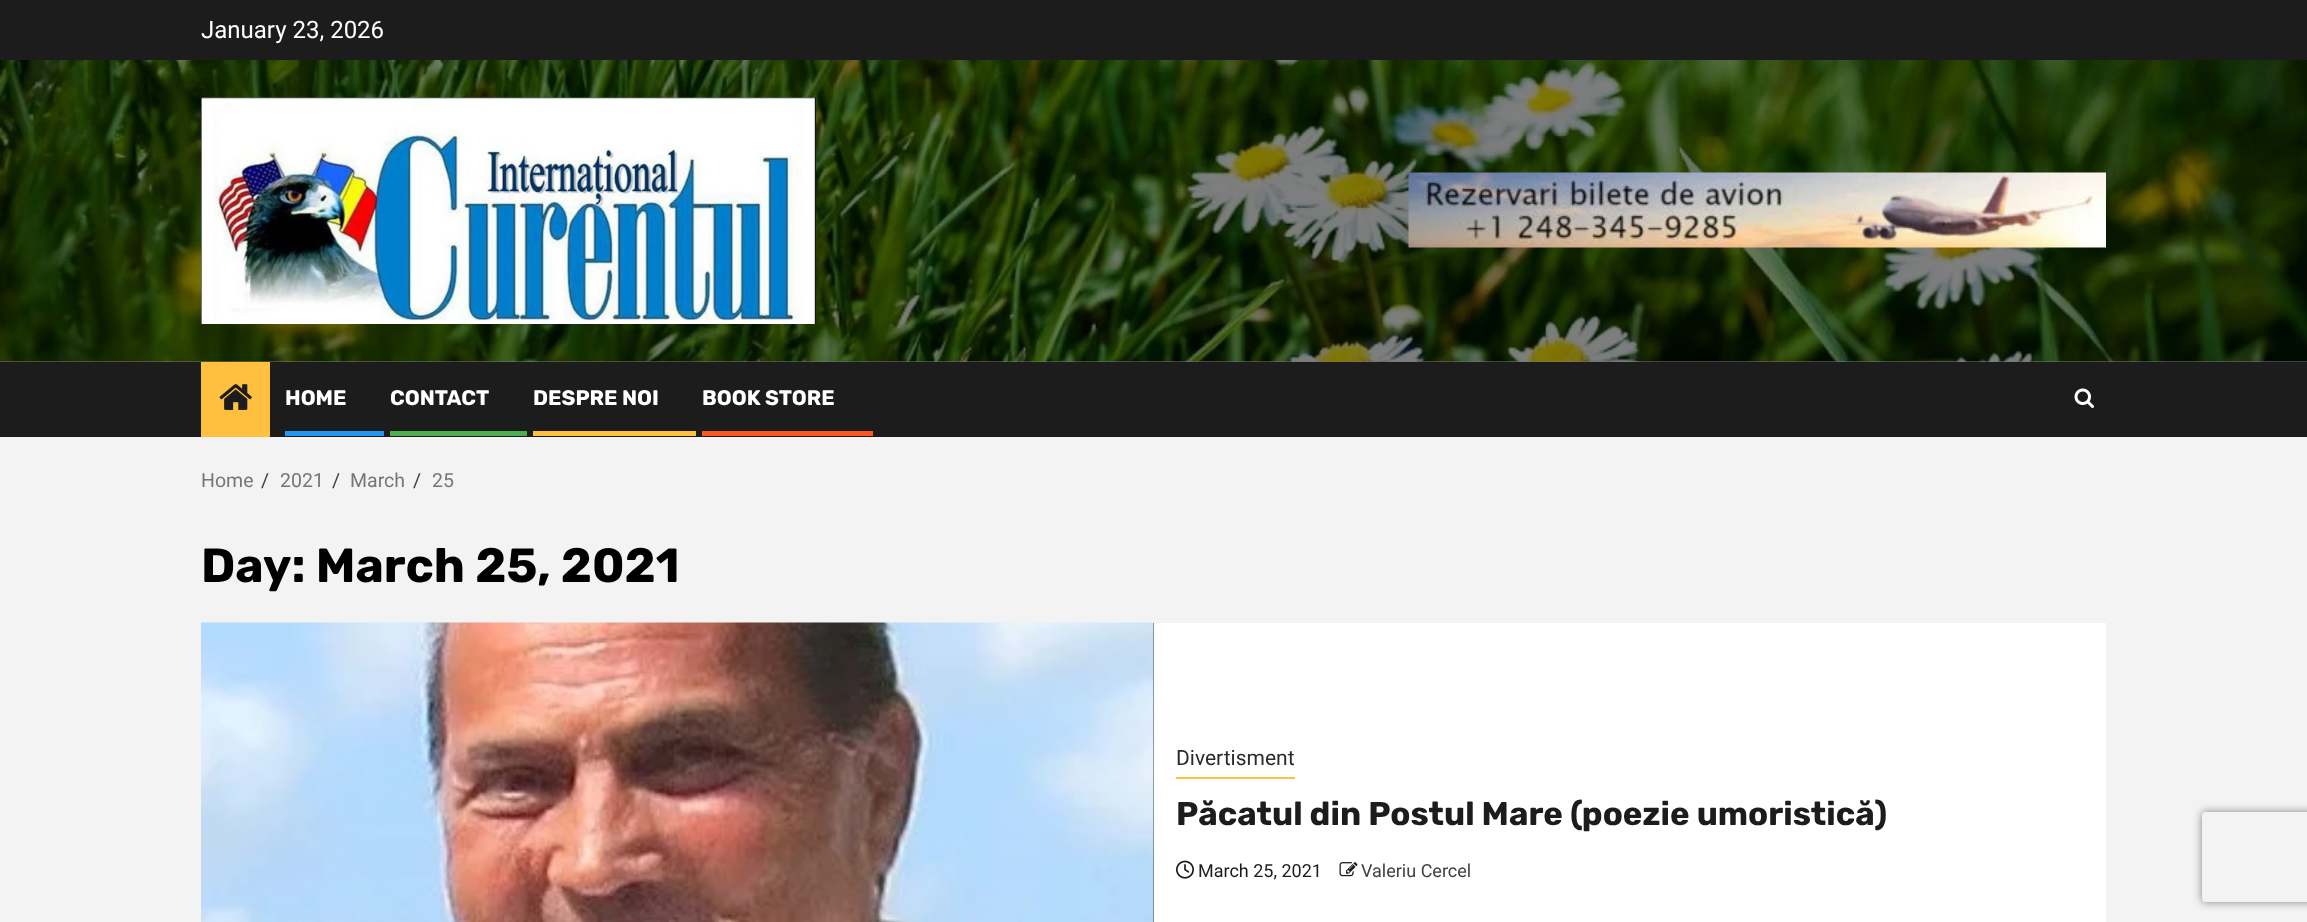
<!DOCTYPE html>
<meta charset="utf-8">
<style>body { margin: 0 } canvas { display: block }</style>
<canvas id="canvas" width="2307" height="922"></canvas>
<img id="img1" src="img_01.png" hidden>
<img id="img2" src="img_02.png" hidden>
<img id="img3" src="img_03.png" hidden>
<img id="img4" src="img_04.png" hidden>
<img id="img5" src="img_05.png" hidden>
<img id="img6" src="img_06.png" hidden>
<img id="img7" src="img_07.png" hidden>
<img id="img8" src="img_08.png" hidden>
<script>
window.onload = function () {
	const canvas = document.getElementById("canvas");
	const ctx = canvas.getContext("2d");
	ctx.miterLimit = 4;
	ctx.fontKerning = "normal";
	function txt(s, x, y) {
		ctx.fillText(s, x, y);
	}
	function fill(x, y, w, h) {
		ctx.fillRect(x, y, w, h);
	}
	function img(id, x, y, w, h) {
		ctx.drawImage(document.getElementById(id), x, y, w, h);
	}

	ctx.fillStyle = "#F3F3F3";
	fill(0, 0, 2307, 922);
	ctx.fillStyle = "#787878";
	fill(0, 361, 2307, 1);
	ctx.fillStyle = "#1C1C1C";
	fill(0, 0, 2307, 60);
	img("img1", 0, 60, 2307, 302);
	img("img2", 201, 97, 615, 227);
	img("img3", 1408, 172, 698, 76);
	fill(0, 362, 2307, 75);
	ctx.fillStyle = "#FFBF3F";
	fill(201, 362, 69, 75);
	img("img4", 219, 384, 33, 26);
	ctx.fillStyle = "#2196F3";
	fill(285, 431, 99, 5);
	ctx.fillStyle = "#4CAF50";
	fill(390, 431, 137, 5);
	ctx.fillStyle = "#FFBF3F";
	fill(533, 431, 163, 5);
	ctx.fillStyle = "#FF5722";
	fill(702, 431, 171, 5);
	img("img5", 2074, 388, 20, 20);
	ctx.fillStyle = "#FFFFFF";
	fill(1154, 623, 952, 299);
	ctx.fillStyle = "#404040";
	fill(1153, 623, 1, 299);
	img("img6", 201, 622, 953, 300);
	ctx.fillStyle = "#FFBF3F";
	fill(1176, 777, 119, 2);
	img("img7", 1176, 860, 18, 19);
	img("img8", 1339, 862, 19, 15);
	ctx.save();
	ctx.beginPath();
	ctx.moveTo(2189, 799);
	ctx.lineTo(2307, 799);
	ctx.lineTo(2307, 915);
	ctx.lineTo(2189, 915);
	ctx.closePath();
	ctx.moveTo(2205, 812);
	ctx.lineTo(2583, 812);
	ctx.bezierCurveTo(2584.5, 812, 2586, 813.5, 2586, 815);
	ctx.lineTo(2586, 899);
	ctx.bezierCurveTo(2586, 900.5, 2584.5, 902, 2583, 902);
	ctx.lineTo(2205, 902);
	ctx.bezierCurveTo(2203.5, 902, 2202, 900.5, 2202, 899);
	ctx.lineTo(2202, 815);
	ctx.bezierCurveTo(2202, 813.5, 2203.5, 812, 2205, 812);
	ctx.closePath();
	ctx.clip("evenodd");
	ctx.fillStyle = "#808080";
	ctx.filter = "blur(4px)";
	ctx.beginPath();
	ctx.roundRect(2202, 812, 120, 90, 3);
	ctx.fill();
	ctx.filter = "none";
	ctx.restore();
	ctx.font = "24px Roboto";
	ctx.fillStyle = "#FFFFFF";
	txt("January 23, 2026", 201, 38);
	ctx.font = "bold 21px Rubik";
	txt("HOME", 285, 405);
	txt("CONTACT", 390, 405);
	txt("DESPRE NOI", 533, 405);
	txt("BOOK STORE", 702, 405);
	ctx.font = "19.5px Roboto";
	ctx.fillStyle = "#767676";
	txt("Home", 201, 487);
	ctx.fillStyle = "#393E46";
	txt("/", 261, 487);
	ctx.fillStyle = "#767676";
	txt("2021", 280, 487);
	ctx.fillStyle = "#393E46";
	txt("/", 332, 487);
	ctx.fillStyle = "#767676";
	txt("March", 350, 487);
	ctx.fillStyle = "#393E46";
	txt("/", 413, 487);
	ctx.fillStyle = "#767676";
	txt("25", 432, 487);
	ctx.font = "bold 48px Rubik";
	ctx.fillStyle = "#000000";
	txt("Day: March 25, 2021", 201, 582);
	ctx.font = "21px Roboto";
	ctx.fillStyle = "#2B2B2B";
	txt("Divertisment", 1176, 765);
	ctx.font = "bold 33px Rubik";
	ctx.fillStyle = "#1C1C1C";
	txt("Păcatul din Postul Mare (poezie umoristică)", 1176, 825);
	ctx.font = "18px Roboto";
	txt("March 25, 2021", 1198, 877);
	ctx.fillStyle = "#404040";
	txt("Valeriu Cercel", 1361, 877);
};
</script>
